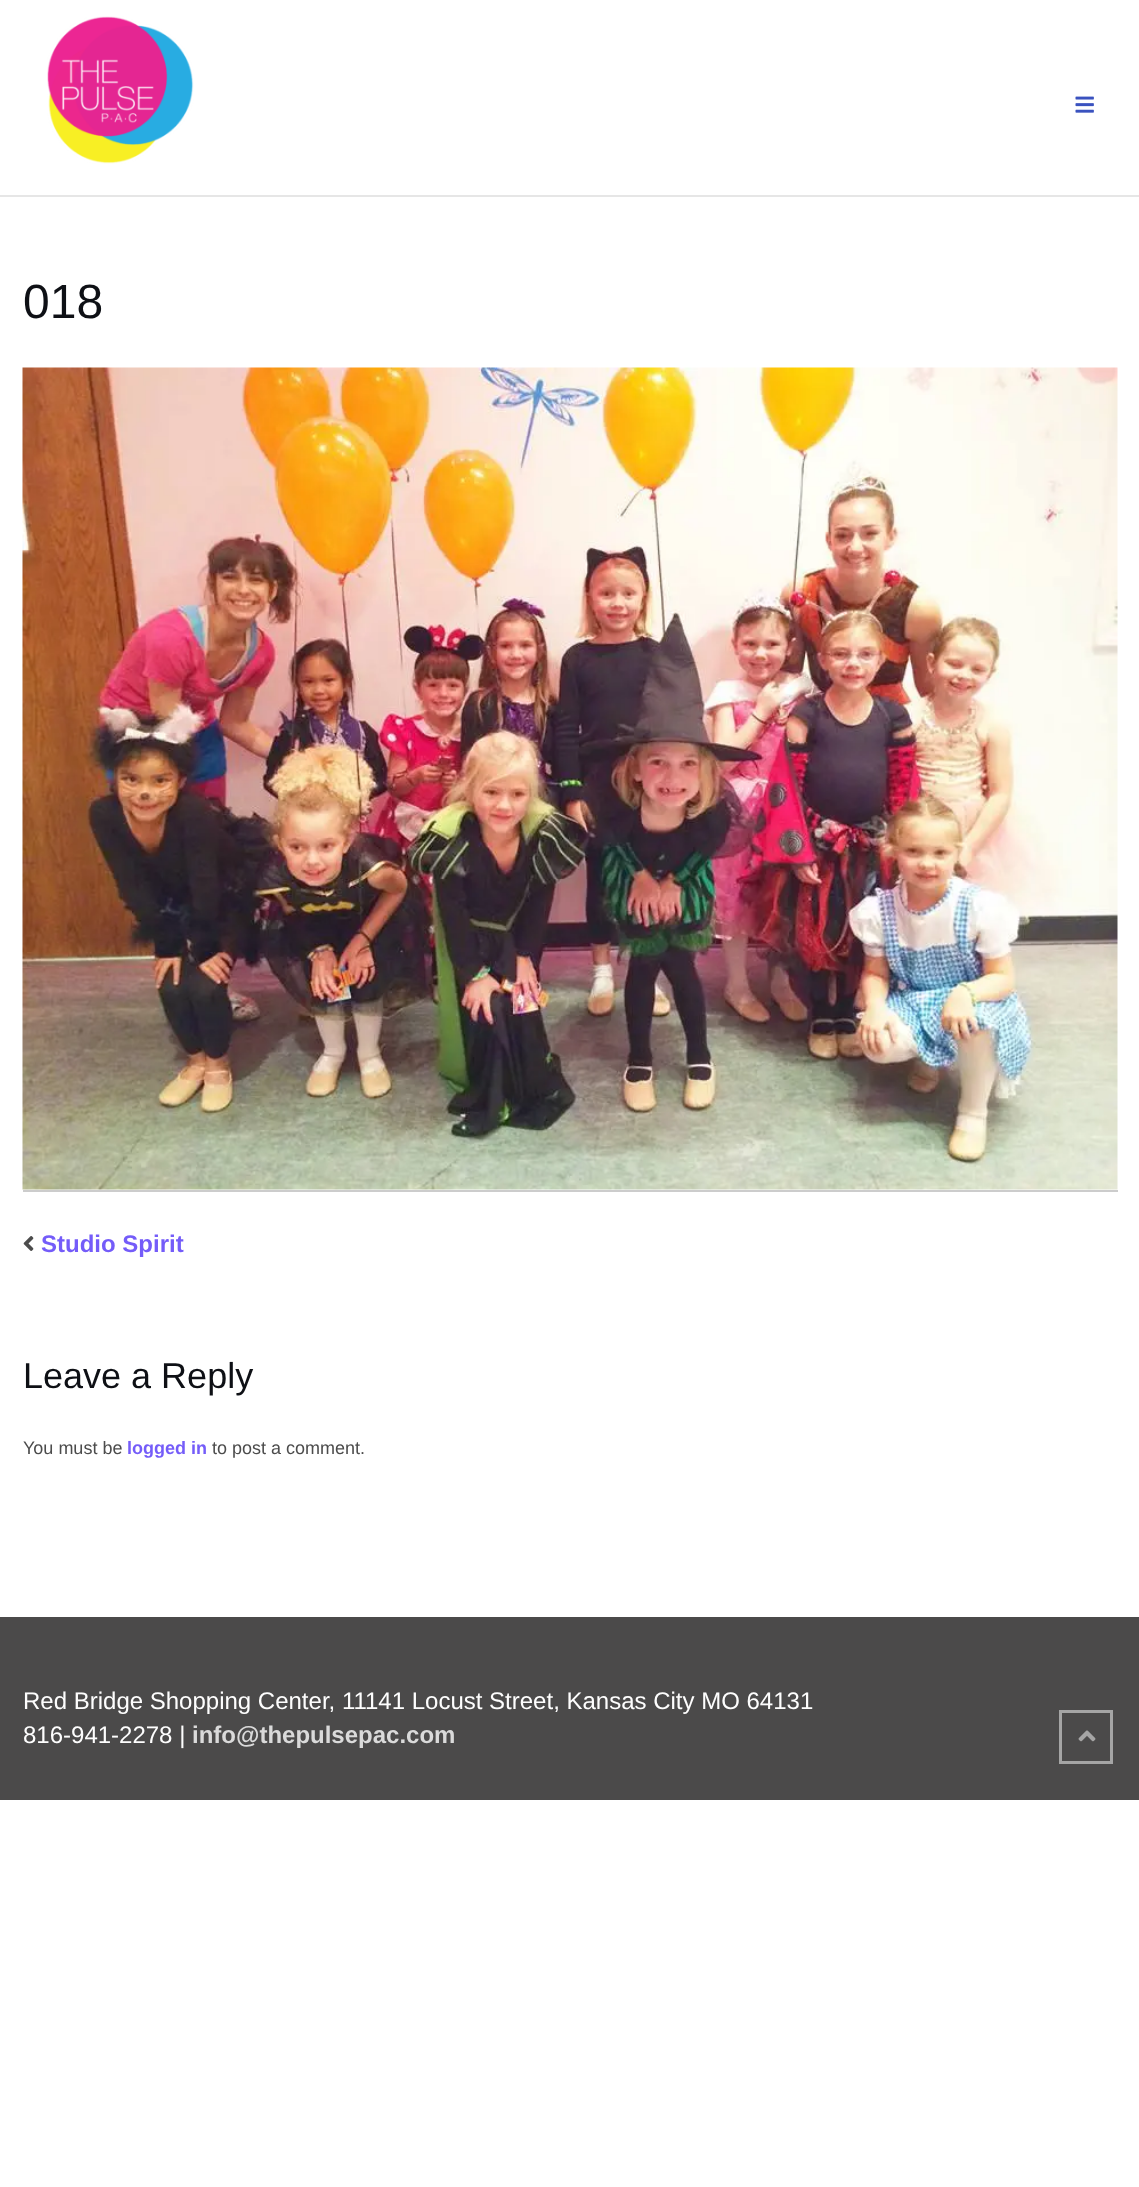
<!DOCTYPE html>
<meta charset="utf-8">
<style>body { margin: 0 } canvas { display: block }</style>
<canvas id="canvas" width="1139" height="2187"></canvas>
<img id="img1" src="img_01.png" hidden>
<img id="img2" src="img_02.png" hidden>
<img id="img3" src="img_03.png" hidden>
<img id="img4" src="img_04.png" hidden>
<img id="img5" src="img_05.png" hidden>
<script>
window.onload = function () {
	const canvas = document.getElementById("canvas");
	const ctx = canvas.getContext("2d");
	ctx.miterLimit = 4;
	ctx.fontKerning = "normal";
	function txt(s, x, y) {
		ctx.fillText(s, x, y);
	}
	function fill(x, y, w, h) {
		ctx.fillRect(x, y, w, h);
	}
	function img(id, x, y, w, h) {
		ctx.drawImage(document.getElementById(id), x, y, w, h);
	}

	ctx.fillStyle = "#FFFFFF";
	fill(0, 0, 1139, 2187);
	ctx.fillStyle = "#E6E6E6";
	fill(0, 195, 1139, 2);
	img("img1", 47, 16, 147, 148);
	img("img2", 1075, 96, 19, 17);
	img("img3", 22, 367, 1096, 823);
	ctx.fillStyle = "#CCCCCC";
	fill(23, 1190, 1095, 2);
	img("img4", 23, 1236, 11, 15);
	ctx.fillStyle = "#4B4A4A";
	fill(0, 1617, 1139, 183);
	ctx.strokeStyle = "#A5A5A5";
	ctx.lineWidth = 3;
	ctx.strokeRect(1060.5, 1711.5, 51, 51);
	img("img5", 1078, 1730, 18, 12);
	ctx.font = "48px Liberation Sans";
	ctx.fillStyle = "#0E1015";
	txt("018", 23, 318);
	ctx.font = "bold 24px Liberation Sans";
	ctx.fillStyle = "#745CF9";
	txt("Studio Spirit", 41, 1252);
	ctx.font = "36px Liberation Sans";
	ctx.fillStyle = "#0E1015";
	txt("Leave a Reply", 23, 1388);
	ctx.font = "18px Liberation Sans";
	ctx.fillStyle = "#4C4C4C";
	txt("You must be", 23, 1454);
	ctx.font = "bold 18px Liberation Sans";
	ctx.fillStyle = "#745CF9";
	txt("logged in", 127, 1454);
	ctx.font = "18px Liberation Sans";
	ctx.fillStyle = "#4C4C4C";
	txt("to post a comment.", 212, 1454);
	ctx.font = "24px Liberation Sans";
	ctx.fillStyle = "#FEFEFE";
	txt("Red Bridge Shopping Center, 11141 Locust Street, Kansas City MO 64131", 23, 1709);
	txt("816-941-2278 |", 23, 1743);
	ctx.font = "bold 24px Liberation Sans";
	ctx.fillStyle = "#DADADA";
	txt("info@thepulsepac.com", 192, 1743);
};
</script>
